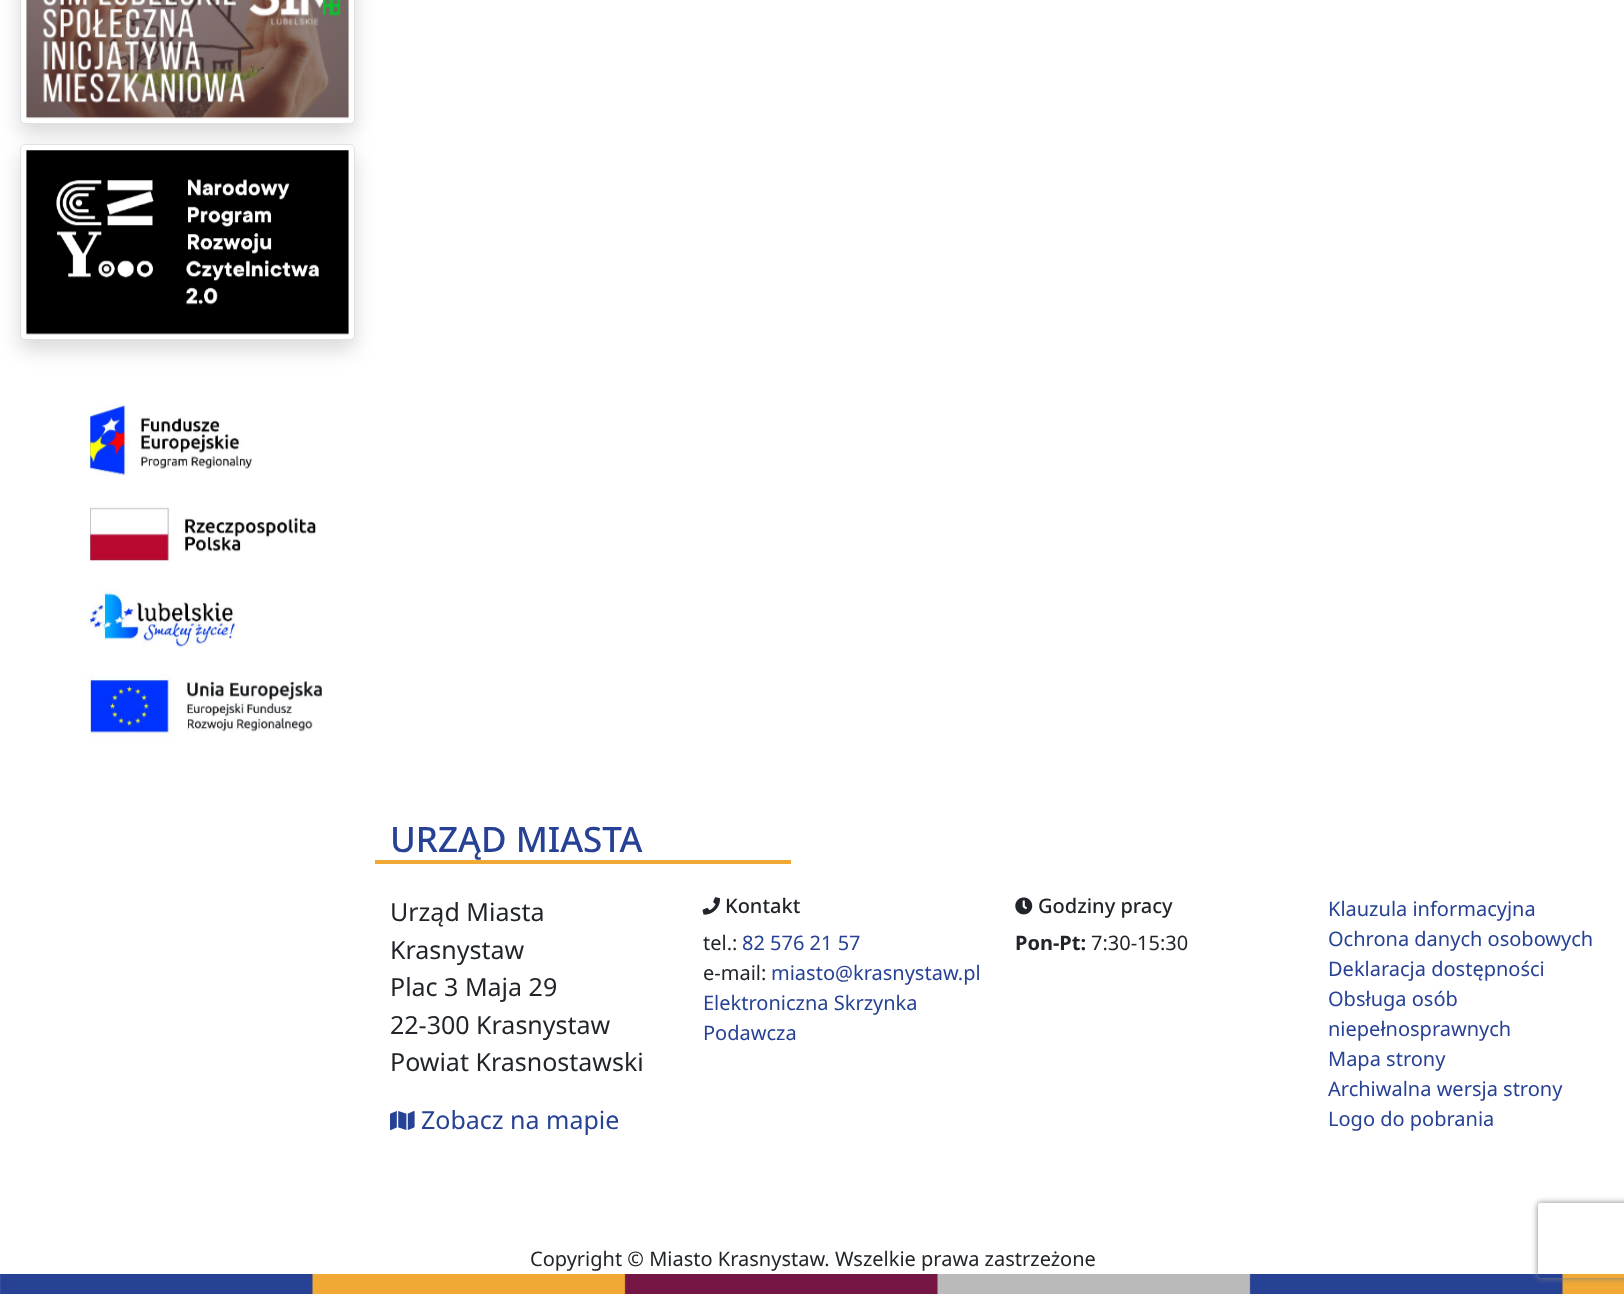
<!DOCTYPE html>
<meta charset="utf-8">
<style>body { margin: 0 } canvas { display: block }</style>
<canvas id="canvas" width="1624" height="1294"></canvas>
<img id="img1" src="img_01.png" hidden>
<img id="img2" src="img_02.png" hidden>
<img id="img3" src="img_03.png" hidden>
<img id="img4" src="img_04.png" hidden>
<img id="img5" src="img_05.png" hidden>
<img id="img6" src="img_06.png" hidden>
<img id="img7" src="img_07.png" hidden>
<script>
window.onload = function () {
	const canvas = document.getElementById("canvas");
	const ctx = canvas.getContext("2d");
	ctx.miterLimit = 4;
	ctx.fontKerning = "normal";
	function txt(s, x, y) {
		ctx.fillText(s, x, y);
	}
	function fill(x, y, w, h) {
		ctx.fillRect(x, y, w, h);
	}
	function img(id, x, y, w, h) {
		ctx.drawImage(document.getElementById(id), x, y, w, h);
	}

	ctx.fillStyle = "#FFFFFF";
	fill(0, 0, 1624, 1294);
	ctx.fillStyle = "rgba(0, 0, 0, 0.15)";
	ctx.filter = "blur(10px)";
	ctx.beginPath();
	ctx.roundRect(20, -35, 335, 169, 5);
	ctx.fill();
	ctx.filter = "none";
	ctx.fillStyle = "#FFFFFF";
	ctx.beginPath();
	ctx.roundRect(20.5, -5.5, 334, 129, 4.5);
	ctx.fill();
	ctx.strokeStyle = "#DEE2E6";
	ctx.stroke();
	img("img1", 26, 0, 323, 119);
	ctx.fillStyle = "rgba(0, 0, 0, 0.15)";
	ctx.filter = "blur(10px)";
	ctx.beginPath();
	ctx.roundRect(20, 154, 335, 196, 5);
	ctx.fill();
	ctx.filter = "none";
	ctx.fillStyle = "#FFFFFF";
	ctx.beginPath();
	ctx.roundRect(20.5, 144.5, 334, 195, 4.5);
	ctx.fill();
	ctx.stroke();
	img("img2", 26, 150, 323, 185);
	img("img3", 86, 405, 237, 333);
	ctx.fillStyle = "#F0A935";
	fill(375, 860, 416, 4);
	img("img4", 390, 1111, 25, 20);
	img("img5", 702, 897, 18, 18);
	img("img6", 1015, 897, 18, 18);
	img("img7", 0, 1274, 1624, 20);
	ctx.save();
	ctx.beginPath();
	ctx.moveTo(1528, 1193);
	ctx.lineTo(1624, 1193);
	ctx.lineTo(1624, 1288);
	ctx.lineTo(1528, 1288);
	ctx.closePath();
	ctx.moveTo(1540.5, 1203);
	ctx.lineTo(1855.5, 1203);
	ctx.bezierCurveTo(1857, 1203, 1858, 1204, 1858, 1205.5);
	ctx.lineTo(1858, 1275.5);
	ctx.bezierCurveTo(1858, 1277, 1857, 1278, 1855.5, 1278);
	ctx.lineTo(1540.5, 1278);
	ctx.bezierCurveTo(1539, 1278, 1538, 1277, 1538, 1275.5);
	ctx.lineTo(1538, 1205.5);
	ctx.bezierCurveTo(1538, 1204, 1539, 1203, 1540.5, 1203);
	ctx.closePath();
	ctx.clip("evenodd");
	ctx.fillStyle = "#808080";
	ctx.filter = "blur(3px)";
	ctx.beginPath();
	ctx.roundRect(1538, 1203, 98, 75, 2.5);
	ctx.fill();
	ctx.filter = "none";
	ctx.restore();
	ctx.font = "500 35px Noto Sans";
	ctx.fillStyle = "#274295";
	txt("URZĄD MIASTA", 390, 852);
	ctx.font = "25px Noto Sans";
	ctx.fillStyle = "#212529";
	txt("Urząd Miasta", 390, 921);
	txt("Krasnystaw", 390, 959);
	txt("Plac 3 Maja 29", 390, 996);
	txt("22-300 Krasnystaw", 390, 1034);
	txt("Powiat Krasnostawski", 390, 1071);
	ctx.fillStyle = "#274295";
	txt("Zobacz na mapie", 421, 1129);
	ctx.font = "500 20px Noto Sans";
	ctx.fillStyle = "#212529";
	txt("Kontakt", 725, 913);
	ctx.font = "20px Noto Sans";
	txt("tel.:", 703, 950);
	ctx.fillStyle = "#274295";
	txt("82 576 21 57", 742, 950);
	ctx.fillStyle = "#212529";
	txt("e-mail:", 703, 980);
	ctx.fillStyle = "#274295";
	txt("miasto@krasnystaw.pl", 771, 980);
	txt("Elektroniczna Skrzynka", 703, 1010);
	txt("Podawcza", 703, 1040);
	ctx.font = "500 20px Noto Sans";
	ctx.fillStyle = "#212529";
	txt("Godziny pracy", 1038, 913);
	ctx.font = "bold 20px Noto Sans";
	txt("Pon-Pt:", 1015, 950);
	ctx.font = "20px Noto Sans";
	txt("7:30-15:30", 1091, 950);
	ctx.fillStyle = "#274295";
	txt("Klauzula informacyjna", 1328, 916);
	txt("Ochrona danych osobowych", 1328, 946);
	txt("Deklaracja dostępności", 1328, 976);
	txt("Obsługa osób", 1328, 1006);
	txt("niepełnosprawnych", 1328, 1036);
	txt("Mapa strony", 1328, 1066);
	txt("Archiwalna wersja strony", 1328, 1096);
	txt("Logo do pobrania", 1328, 1126);
	ctx.fillStyle = "#212529";
	txt("Copyright © Miasto Krasnystaw. Wszelkie prawa zastrzeżone", 530, 1266);
};
</script>
